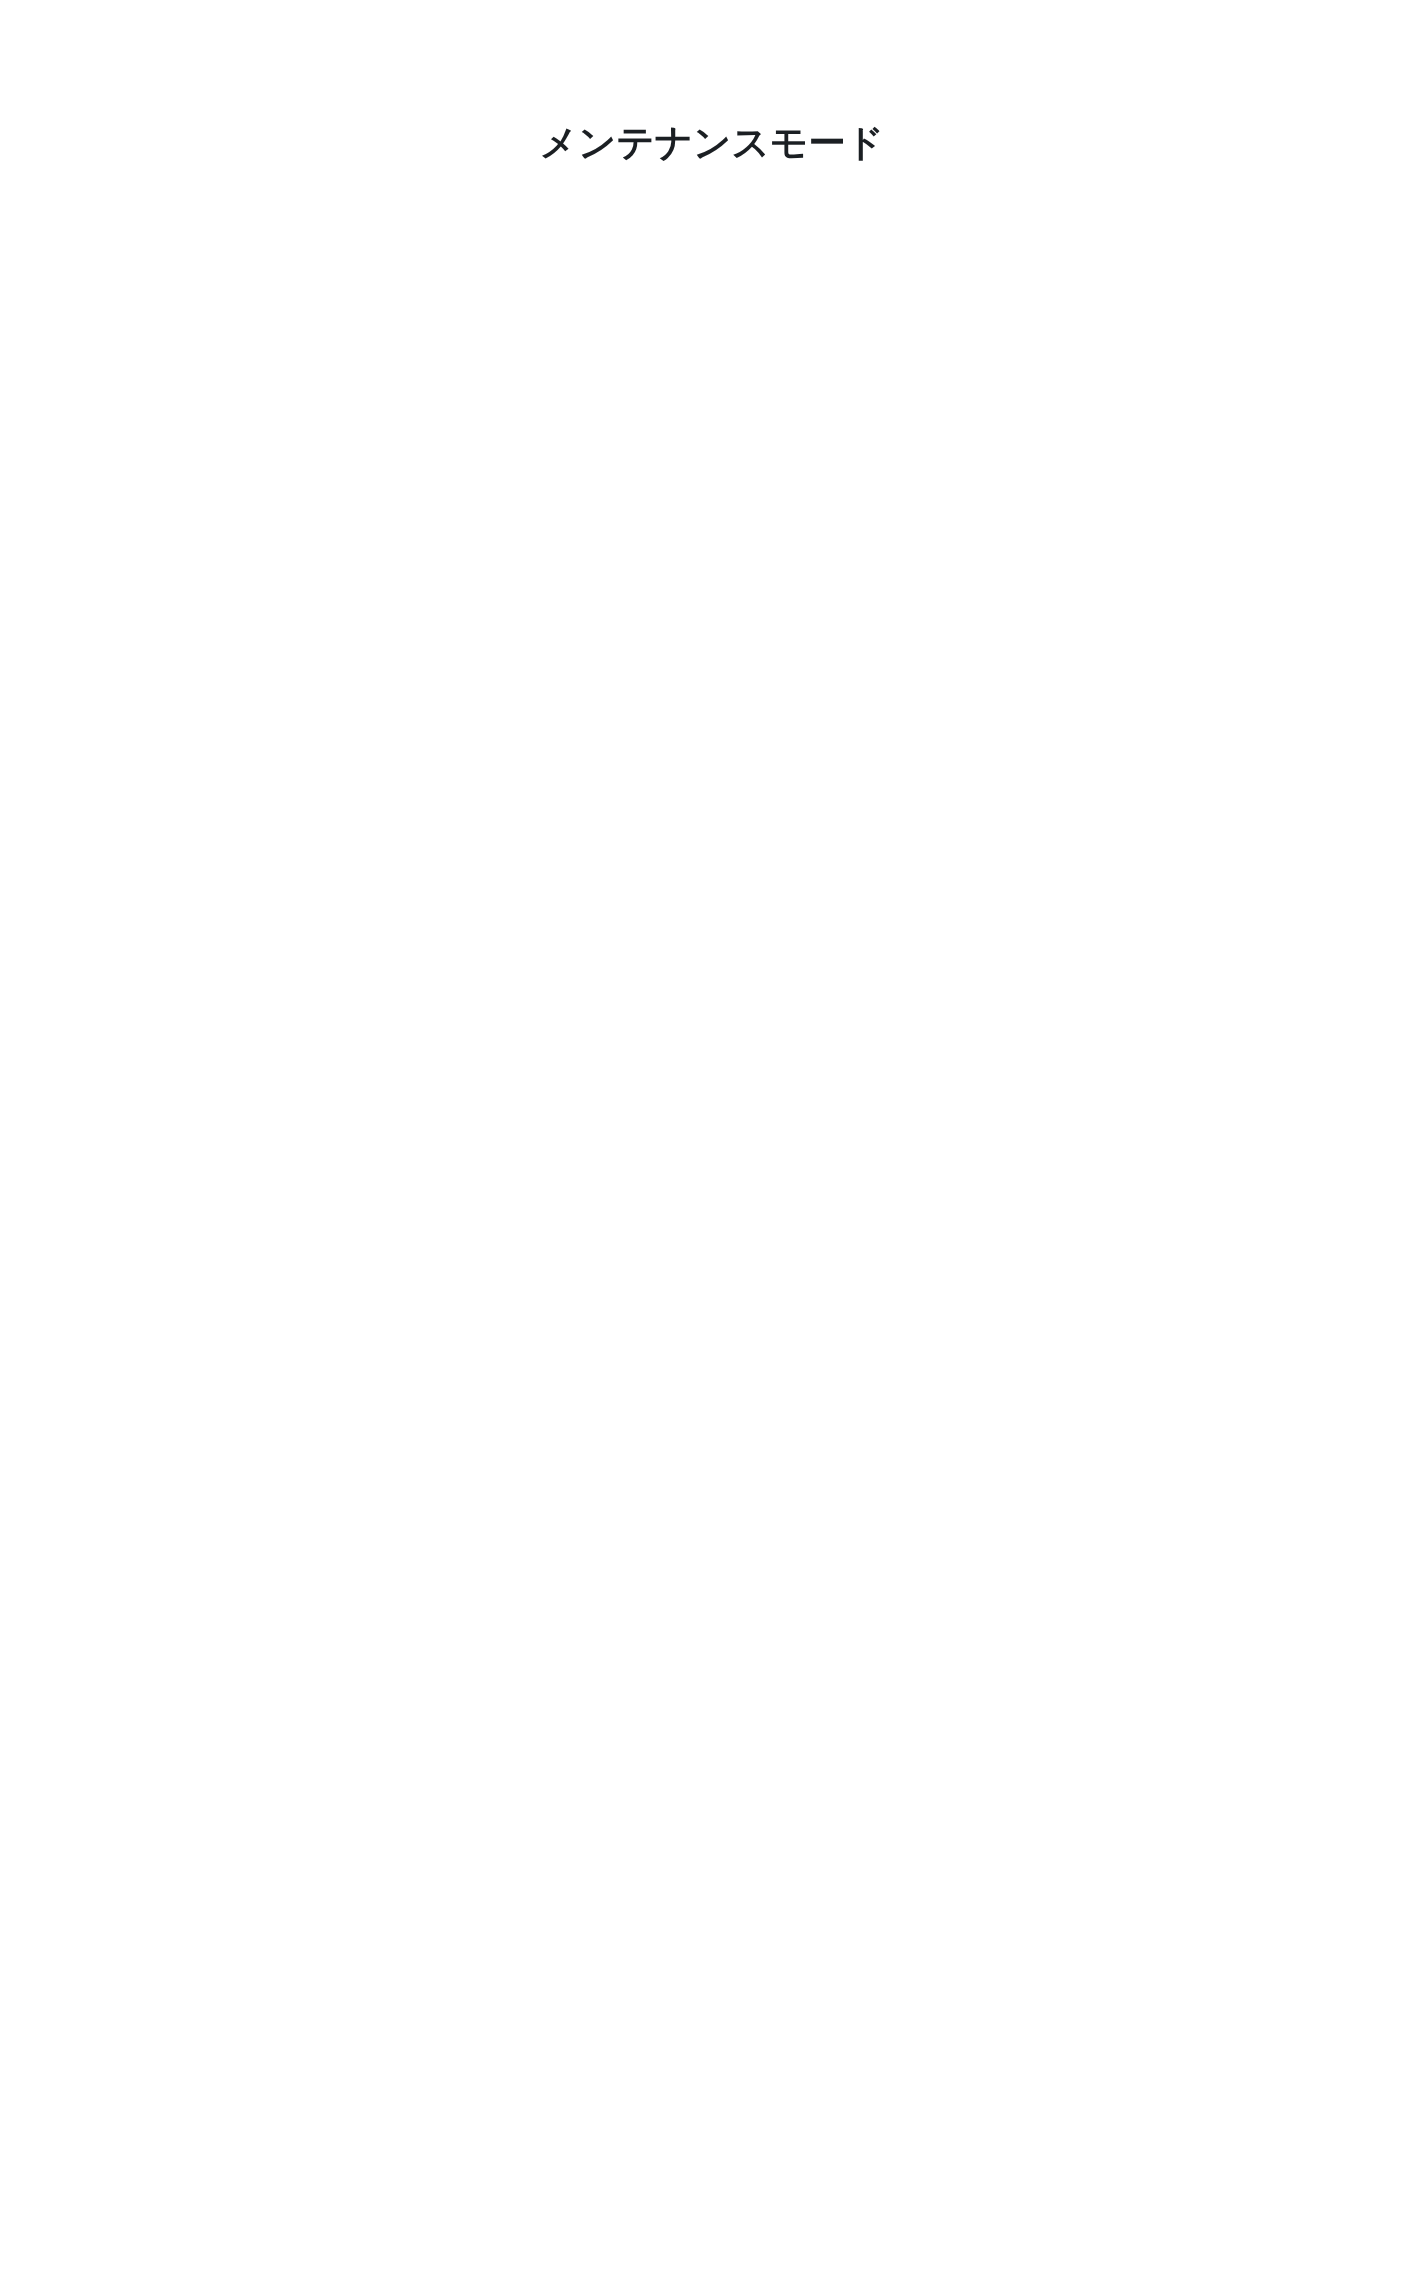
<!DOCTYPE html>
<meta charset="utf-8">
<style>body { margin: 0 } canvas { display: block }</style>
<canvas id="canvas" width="1422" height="2283"></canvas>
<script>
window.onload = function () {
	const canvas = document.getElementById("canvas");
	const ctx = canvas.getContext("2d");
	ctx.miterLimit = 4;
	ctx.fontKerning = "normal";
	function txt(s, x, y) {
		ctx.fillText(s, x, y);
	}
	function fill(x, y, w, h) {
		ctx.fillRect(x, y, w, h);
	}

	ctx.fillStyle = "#FFFFFF";
	fill(0, 0, 1422, 2283);
	ctx.font = "bold 37.5px WenQuanYi Zen Hei";
	ctx.fillStyle = "#1B1F23";
	txt("メンテナンスモード", 539, 156);
};
</script>
